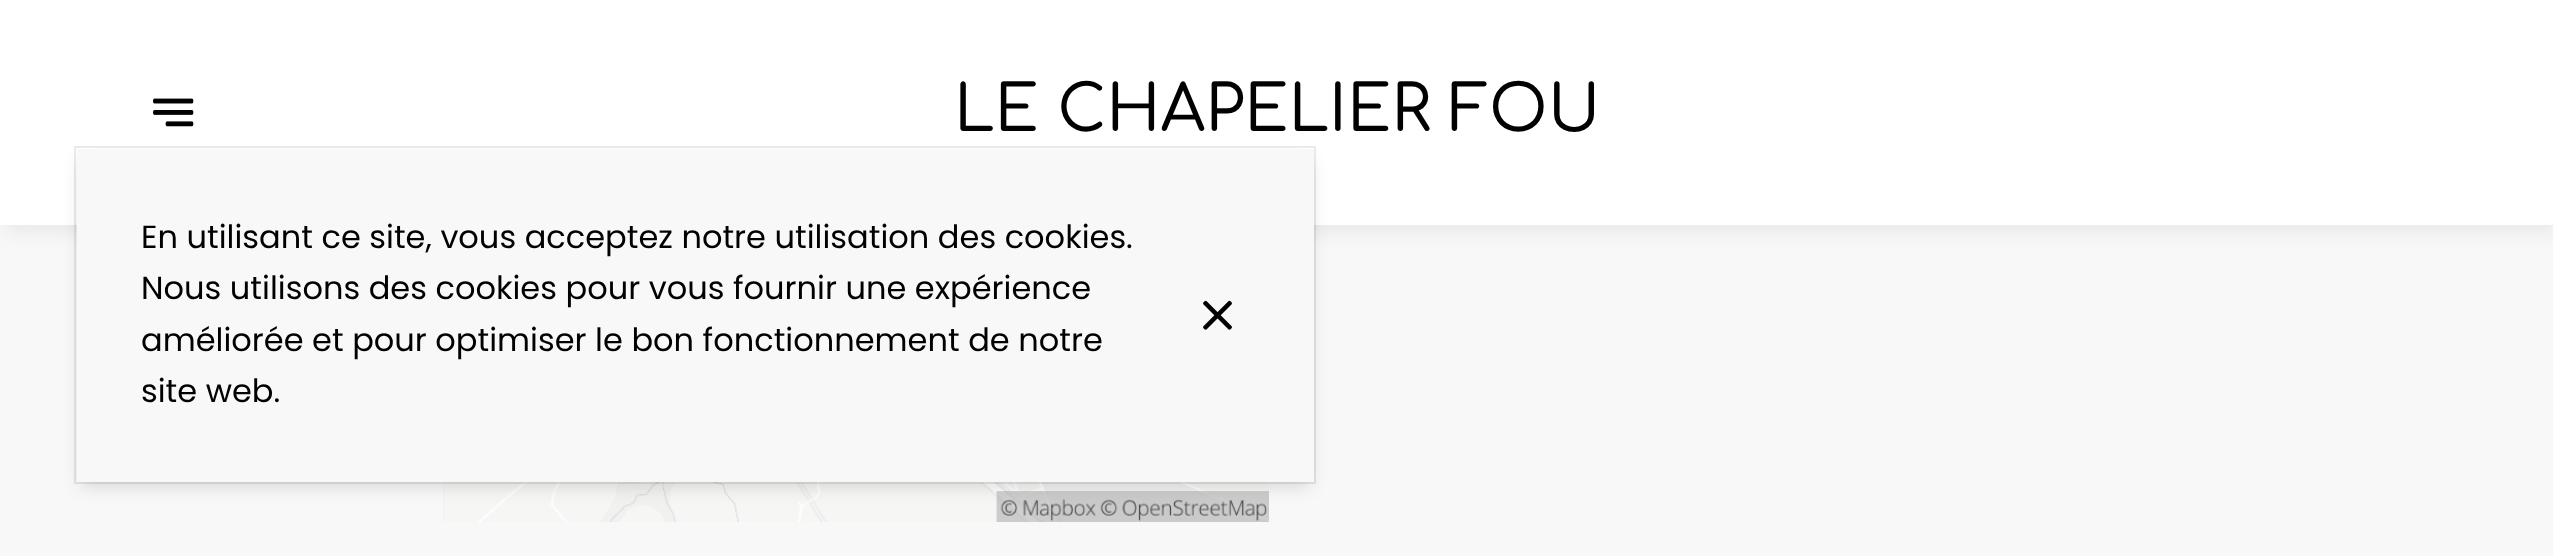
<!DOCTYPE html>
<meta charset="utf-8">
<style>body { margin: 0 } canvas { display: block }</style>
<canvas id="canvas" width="2553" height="556"></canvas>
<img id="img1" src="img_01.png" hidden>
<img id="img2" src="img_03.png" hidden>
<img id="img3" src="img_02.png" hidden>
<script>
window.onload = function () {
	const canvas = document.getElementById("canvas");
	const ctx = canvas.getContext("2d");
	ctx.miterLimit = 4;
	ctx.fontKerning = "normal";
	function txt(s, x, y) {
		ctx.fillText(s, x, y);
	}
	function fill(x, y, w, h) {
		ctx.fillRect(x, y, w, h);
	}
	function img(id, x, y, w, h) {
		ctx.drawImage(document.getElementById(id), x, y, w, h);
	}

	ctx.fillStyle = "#F8F8F8";
	fill(0, 0, 2553, 556);
	ctx.fillStyle = "rgba(127, 127, 127, 0.15)";
	ctx.filter = "blur(11px)";
	ctx.beginPath();
	ctx.rect(5, 5, 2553, 225);
	ctx.fill();
	ctx.filter = "none";
	ctx.fillStyle = "#FFFFFF";
	fill(0, 0, 2553, 225);
	img("img1", 153, 98, 41, 29);
	ctx.fillStyle = "#ECECEC";
	fill(443, 482, 1, 40);
	img("img2", 443, 482, 826, 40);
	ctx.strokeStyle = "rgba(1, 1, 1, 0.08)";
	ctx.lineWidth = 2;
	ctx.strokeRect(75, 147, 1240, 336);
	ctx.fillStyle = "rgba(1, 1, 1, 0.14)";
	ctx.filter = "blur(9px)";
	ctx.beginPath();
	ctx.rect(81, 162, 1229, 324);
	ctx.fill();
	ctx.filter = "none";
	ctx.fillStyle = "#F8F8F8";
	fill(77, 149, 1237, 333);
	img("img3", 1203, 300, 29, 30);
	ctx.font = "500 63.6px Comfortaa";
	ctx.fillStyle = "#010101";
	txt("LE CHAPELIER FOU", 954, 131);
	ctx.font = "32.05px Poppins";
	txt("En utilisant ce site, vous acceptez notre utilisation des cookies.", 141, 248);
	txt("Nous utilisons des cookies pour vous fournir une expérience", 141, 299);
	txt("améliorée et pour optimiser le bon fonctionnement de notre", 141, 351);
	txt("site web.", 141, 402);
};
</script>
